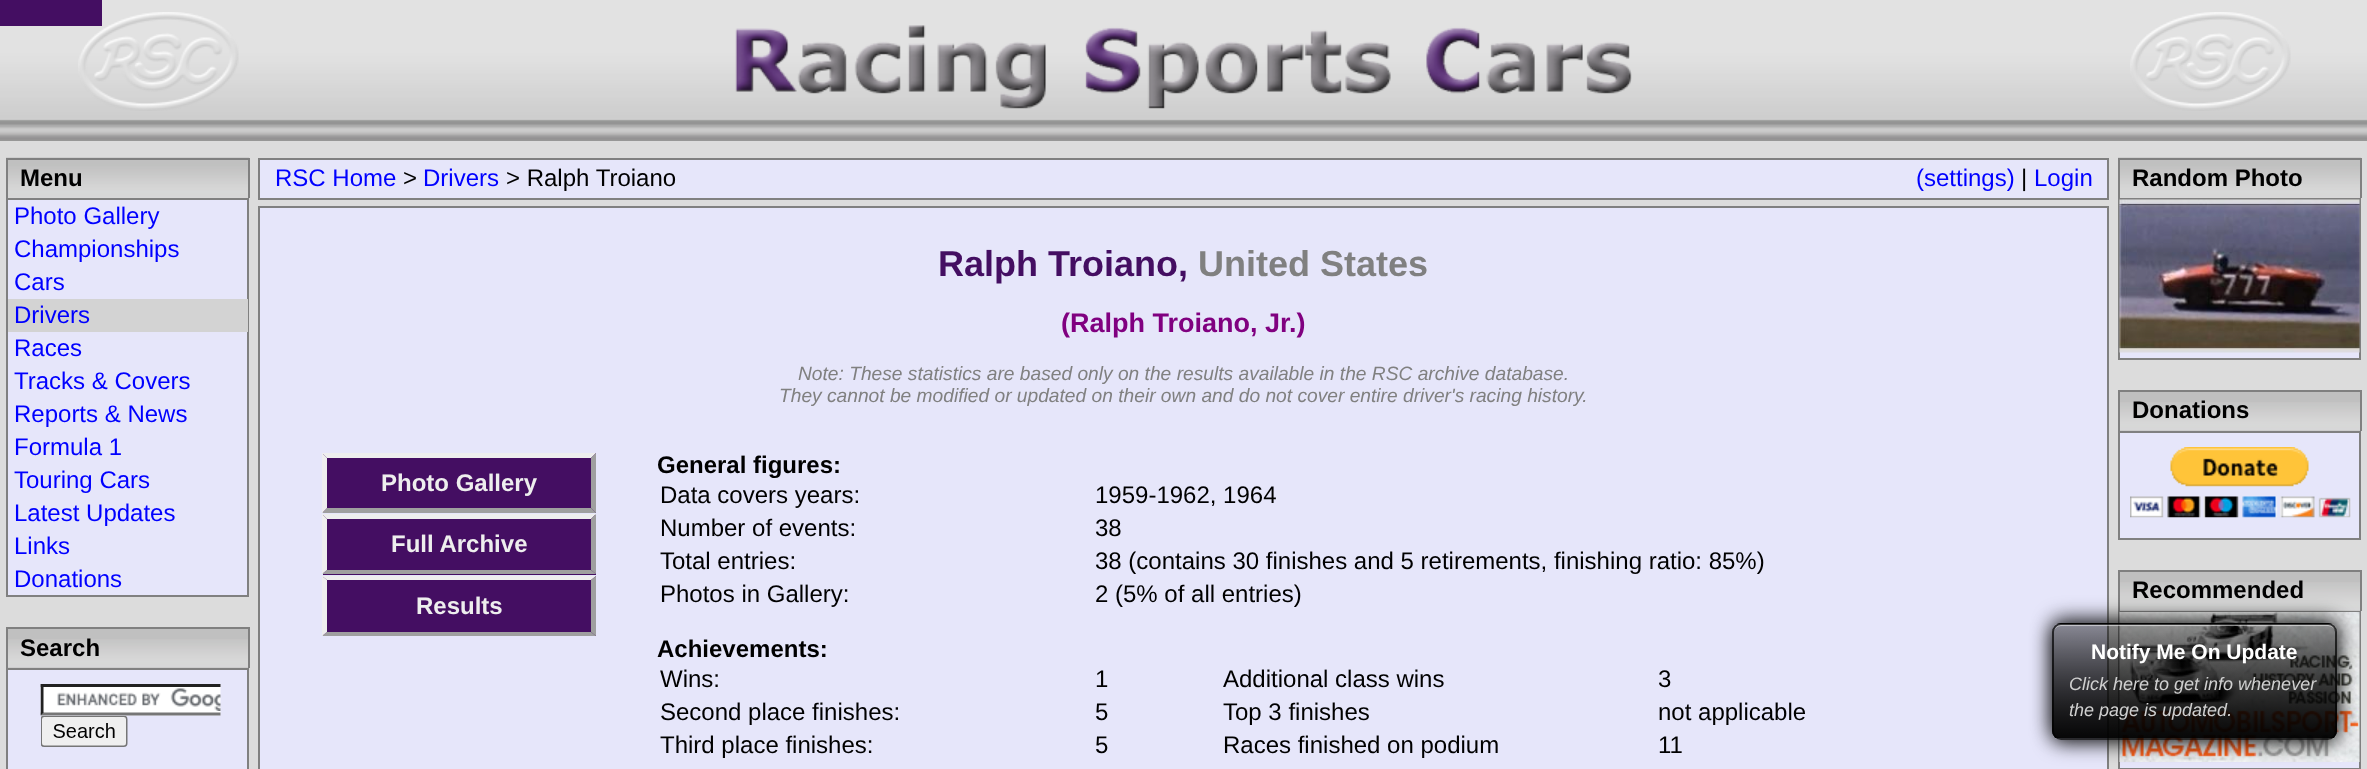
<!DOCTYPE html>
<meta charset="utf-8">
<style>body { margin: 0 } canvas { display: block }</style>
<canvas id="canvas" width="2367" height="769"></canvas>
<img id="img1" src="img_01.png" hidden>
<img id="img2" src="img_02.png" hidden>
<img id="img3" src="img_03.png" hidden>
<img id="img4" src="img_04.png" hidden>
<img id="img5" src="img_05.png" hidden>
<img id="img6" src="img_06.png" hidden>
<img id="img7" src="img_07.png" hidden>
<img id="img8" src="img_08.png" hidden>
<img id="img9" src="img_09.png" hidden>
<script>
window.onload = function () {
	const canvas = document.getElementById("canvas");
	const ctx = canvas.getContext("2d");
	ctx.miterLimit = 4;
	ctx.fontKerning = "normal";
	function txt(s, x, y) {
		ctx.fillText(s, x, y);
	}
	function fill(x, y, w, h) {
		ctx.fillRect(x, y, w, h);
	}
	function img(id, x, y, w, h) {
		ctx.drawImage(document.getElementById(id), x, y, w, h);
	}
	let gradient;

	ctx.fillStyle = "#DCDCDC";
	fill(0, 0, 2367, 769);
	img("img1", 0, 0, 2367, 141);
	img("img2", 78, 12, 161, 99);
	ctx.fillStyle = "#440E62";
	fill(0, 0, 102, 26);
	img("img3", 735, 25, 897, 84);
	img("img2", 2130, 12, 161, 99);
	img("img4", 6, 157, 243, 41);
	ctx.fillStyle = "#808080";
	fill(6, 158, 243, 2);
	fill(248, 158, 2, 40);
	fill(6, 158, 2, 40);
	ctx.fillStyle = "#E6E6FA";
	ctx.beginPath();
	ctx.rect(7, 199, 241, 397);
	ctx.fill();
	ctx.strokeStyle = "#808080";
	ctx.lineWidth = 2;
	ctx.stroke();
	ctx.fillStyle = "#D3D3D3";
	fill(8, 299, 240, 33);
	ctx.fillStyle = "#C0C0C0";
	fill(8, 629, 240, 39);
	img("img5", 8, 639, 240, 29);
	ctx.fillStyle = "#808080";
	fill(6, 627, 243, 2);
	fill(248, 627, 2, 41);
	fill(6, 627, 2, 41);
	ctx.fillStyle = "#E6E6FA";
	ctx.beginPath();
	ctx.rect(7, 669, 241, 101);
	ctx.fill();
	ctx.stroke();
	img("img6", 40, 684, 181, 63);
	ctx.beginPath();
	ctx.rect(259, 159, 1849, 40);
	ctx.fill();
	ctx.stroke();
	ctx.beginPath();
	ctx.rect(259, 207, 1849, 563);
	ctx.fill();
	ctx.stroke();
	ctx.fillStyle = "#440E62";
	fill(323, 453, 273, 60);
	ctx.fillStyle = "#EEEEEE";
	ctx.beginPath();
	ctx.moveTo(322, 453);
	ctx.lineTo(596, 453);
	ctx.lineTo(591, 458);
	ctx.lineTo(327, 458);
	ctx.closePath();
	ctx.fill();
	ctx.fillStyle = "#9F9F9F";
	ctx.beginPath();
	ctx.moveTo(596, 453);
	ctx.lineTo(596, 513);
	ctx.lineTo(591, 508);
	ctx.lineTo(591, 458);
	ctx.closePath();
	ctx.fill();
	ctx.beginPath();
	ctx.moveTo(596, 513);
	ctx.lineTo(322, 513);
	ctx.lineTo(327, 508);
	ctx.lineTo(591, 508);
	ctx.closePath();
	ctx.fill();
	ctx.fillStyle = "#EEEEEE";
	ctx.beginPath();
	ctx.moveTo(322, 513);
	ctx.lineTo(322, 453);
	ctx.lineTo(327, 458);
	ctx.lineTo(327, 508);
	ctx.closePath();
	ctx.fill();
	ctx.fillStyle = "#440E62";
	fill(323, 515, 273, 60);
	ctx.fillStyle = "#EEEEEE";
	ctx.beginPath();
	ctx.moveTo(322, 514);
	ctx.lineTo(596, 514);
	ctx.lineTo(591, 519);
	ctx.lineTo(327, 519);
	ctx.closePath();
	ctx.fill();
	ctx.fillStyle = "#9F9F9F";
	ctx.beginPath();
	ctx.moveTo(596, 514);
	ctx.lineTo(596, 574);
	ctx.lineTo(591, 570);
	ctx.lineTo(591, 519);
	ctx.closePath();
	ctx.fill();
	ctx.beginPath();
	ctx.moveTo(596, 574);
	ctx.lineTo(322, 574);
	ctx.lineTo(327, 570);
	ctx.lineTo(591, 570);
	ctx.closePath();
	ctx.fill();
	ctx.fillStyle = "#EEEEEE";
	ctx.beginPath();
	ctx.moveTo(322, 574);
	ctx.lineTo(322, 514);
	ctx.lineTo(327, 519);
	ctx.lineTo(327, 570);
	ctx.closePath();
	ctx.fill();
	ctx.fillStyle = "#440E62";
	fill(323, 576, 273, 60);
	ctx.fillStyle = "#EEEEEE";
	ctx.beginPath();
	ctx.moveTo(322, 576);
	ctx.lineTo(596, 576);
	ctx.lineTo(591, 580);
	ctx.lineTo(327, 580);
	ctx.closePath();
	ctx.fill();
	ctx.fillStyle = "#9F9F9F";
	ctx.beginPath();
	ctx.moveTo(596, 576);
	ctx.lineTo(596, 636);
	ctx.lineTo(591, 632);
	ctx.lineTo(591, 580);
	ctx.closePath();
	ctx.fill();
	ctx.beginPath();
	ctx.moveTo(596, 636);
	ctx.lineTo(322, 636);
	ctx.lineTo(327, 632);
	ctx.lineTo(591, 632);
	ctx.closePath();
	ctx.fill();
	ctx.fillStyle = "#EEEEEE";
	ctx.beginPath();
	ctx.moveTo(322, 636);
	ctx.lineTo(322, 576);
	ctx.lineTo(327, 580);
	ctx.lineTo(327, 632);
	ctx.closePath();
	ctx.fill();
	img("img4", 2118, 157, 243, 41);
	ctx.fillStyle = "#808080";
	fill(2118, 158, 243, 2);
	fill(2360, 158, 2, 40);
	fill(2118, 158, 2, 40);
	ctx.fillStyle = "#E6E6FA";
	fill(2120, 352, 239, 6);
	ctx.strokeRect(2119, 199, 241, 160);
	img("img7", 2119, 199, 241, 154);
	ctx.fillStyle = "#C0C0C0";
	fill(2120, 392, 240, 39);
	img("img5", 2120, 402, 240, 29);
	ctx.fillStyle = "#808080";
	fill(2118, 390, 243, 2);
	fill(2360, 390, 2, 41);
	fill(2118, 390, 2, 41);
	ctx.fillStyle = "#E6E6FA";
	ctx.beginPath();
	ctx.rect(2119, 432, 241, 107);
	ctx.fill();
	ctx.stroke();
	img("img8", 2130, 447, 221, 71);
	ctx.fillStyle = "#C0C0C0";
	fill(2120, 572, 240, 39);
	img("img5", 2120, 582, 240, 29);
	ctx.fillStyle = "#808080";
	fill(2118, 570, 243, 2);
	fill(2360, 570, 2, 41);
	fill(2118, 570, 2, 41);
	ctx.fillStyle = "#E6E6FA";
	fill(2120, 762, 239, 6);
	ctx.strokeRect(2119, 612, 241, 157);
	img("img9", 2119, 612, 241, 150);
	ctx.save();
	ctx.beginPath();
	ctx.moveTo(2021, 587);
	ctx.lineTo(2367, 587);
	ctx.lineTo(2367, 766);
	ctx.lineTo(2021, 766);
	ctx.closePath();
	ctx.moveTo(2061, 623);
	ctx.lineTo(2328, 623);
	ctx.bezierCurveTo(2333, 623, 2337, 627, 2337, 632);
	ctx.lineTo(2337, 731);
	ctx.bezierCurveTo(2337, 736, 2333, 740, 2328, 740);
	ctx.lineTo(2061, 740);
	ctx.bezierCurveTo(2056, 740, 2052, 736, 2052, 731);
	ctx.lineTo(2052, 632);
	ctx.bezierCurveTo(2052, 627, 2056, 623, 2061, 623);
	ctx.closePath();
	ctx.clip("evenodd");
	ctx.fillStyle = "rgba(0, 0, 0, 0.6)";
	ctx.filter = "blur(10px)";
	ctx.beginPath();
	ctx.roundRect(2052, 618, 285, 117, 9);
	ctx.fill();
	ctx.filter = "none";
	ctx.restore();
	ctx.save();
	ctx.beginPath();
	ctx.moveTo(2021, 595);
	ctx.lineTo(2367, 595);
	ctx.lineTo(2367, 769);
	ctx.lineTo(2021, 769);
	ctx.closePath();
	ctx.moveTo(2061, 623);
	ctx.lineTo(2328, 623);
	ctx.bezierCurveTo(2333, 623, 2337, 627, 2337, 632);
	ctx.lineTo(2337, 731);
	ctx.bezierCurveTo(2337, 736, 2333, 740, 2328, 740);
	ctx.lineTo(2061, 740);
	ctx.bezierCurveTo(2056, 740, 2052, 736, 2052, 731);
	ctx.lineTo(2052, 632);
	ctx.bezierCurveTo(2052, 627, 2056, 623, 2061, 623);
	ctx.closePath();
	ctx.clip("evenodd");
	ctx.fillStyle = "rgba(0, 0, 0, 0.8)";
	ctx.filter = "blur(10px)";
	ctx.beginPath();
	ctx.roundRect(2052, 626, 285, 117, 9);
	ctx.fill();
	ctx.filter = "none";
	ctx.restore();
	ctx.save();
	ctx.beginPath();
	ctx.roundRect(2052, 623, 285, 117, 9);
	ctx.clip();
	gradient = ctx.createLinearGradient(2195, 510, 2195, 624);
	gradient.addColorStop(0, "rgba(0, 0, 0, 0.4)");
	gradient.addColorStop(1, "rgba(0, 0, 0, 0.7)");
	ctx.fillStyle = gradient;
	fill(2052, 623, 285, 1);
	gradient = ctx.createLinearGradient(2195, 624, 2195, 738);
	gradient.addColorStop(0, "rgba(0, 0, 0, 0.4)");
	gradient.addColorStop(1, "rgba(0, 0, 0, 0.7)");
	ctx.fillStyle = gradient;
	fill(2052, 624, 285, 114);
	gradient = ctx.createLinearGradient(2195, 738, 2195, 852);
	gradient.addColorStop(0, "rgba(0, 0, 0, 0.4)");
	gradient.addColorStop(1, "rgba(0, 0, 0, 0.7)");
	ctx.fillStyle = gradient;
	fill(2052, 738, 285, 2);
	gradient = ctx.createLinearGradient(2195, 510, 2195, 624);
	gradient.addColorStop(0, "rgba(0, 0, 0, 0)");
	gradient.addColorStop(1, "rgba(0, 0, 0, 0.9)");
	ctx.fillStyle = gradient;
	fill(2052, 623, 285, 1);
	gradient = ctx.createLinearGradient(2195, 624, 2195, 738);
	gradient.addColorStop(0, "rgba(0, 0, 0, 0)");
	gradient.addColorStop(1, "rgba(0, 0, 0, 0.9)");
	ctx.fillStyle = gradient;
	fill(2052, 627, 285, 111);
	ctx.restore();
	ctx.fillStyle = "rgba(255, 255, 255, 0.5)";
	ctx.beginPath();
	ctx.moveTo(2061, 626);
	ctx.lineTo(2328, 626);
	ctx.bezierCurveTo(2332, 626, 2336, 629, 2336, 633);
	ctx.lineTo(2336, 632);
	ctx.bezierCurveTo(2336, 628, 2332, 624, 2328, 624);
	ctx.lineTo(2062, 624);
	ctx.bezierCurveTo(2058, 624, 2054, 628, 2054, 632);
	ctx.lineTo(2054, 633);
	ctx.bezierCurveTo(2054, 629, 2057, 626, 2061, 626);
	ctx.closePath();
	ctx.fill();
	ctx.beginPath();
	ctx.roundRect(2053, 624, 283, 115, 8);
	ctx.strokeStyle = "rgba(0, 0, 0, 0.7)";
	ctx.stroke();
	ctx.font = "bold 24px Liberation Sans";
	ctx.fillStyle = "#000000";
	txt("Menu", 20, 186);
	ctx.font = "24px Liberation Sans";
	ctx.fillStyle = "#0000FF";
	txt("Photo Gallery", 14, 224);
	txt("Championships", 14, 257);
	txt("Cars", 14, 290);
	txt("Drivers", 14, 323);
	txt("Races", 14, 356);
	txt("Tracks & Covers", 14, 389);
	txt("Reports & News", 14, 422);
	txt("Formula 1", 14, 455);
	txt("Touring Cars", 14, 488);
	txt("Latest Updates", 14, 521);
	txt("Links", 14, 554);
	txt("Donations", 14, 587);
	ctx.font = "bold 24px Liberation Sans";
	ctx.fillStyle = "#000000";
	txt("Search", 20, 656);
	ctx.font = "24px Liberation Sans";
	ctx.fillStyle = "#0000FF";
	txt("RSC Home", 275, 186);
	ctx.fillStyle = "#000000";
	txt(">", 403, 186);
	ctx.fillStyle = "#0000FF";
	txt("Drivers", 423, 186);
	ctx.fillStyle = "#000000";
	txt("> Ralph Troiano", 506, 186);
	ctx.fillStyle = "#0000FF";
	txt("(settings)", 1916, 186);
	ctx.fillStyle = "#000000";
	txt("|", 2021, 186);
	ctx.fillStyle = "#0000FF";
	txt("Login", 2034, 186);
	ctx.font = "bold 36px Liberation Sans";
	ctx.fillStyle = "#440E62";
	txt("Ralph Troiano,", 938, 276);
	ctx.fillStyle = "#808080";
	txt("United States", 1198, 276);
	ctx.font = "bold 27px Liberation Sans";
	ctx.fillStyle = "#800080";
	txt("(Ralph Troiano, Jr.)", 1061, 332);
	ctx.font = "italic 19.2px Liberation Sans";
	ctx.fillStyle = "#808080";
	txt("Note: These statistics are based only on the results available in the RSC archive database.", 798, 380);
	txt("They cannot be modified or updated on their own and do not cover entire driver's racing history.", 779, 402);
	ctx.font = "bold 24px Liberation Sans";
	ctx.fillStyle = "#EEEEEE";
	txt("Photo Gallery", 381, 491);
	txt("Full Archive", 391, 552);
	txt("Results", 416, 614);
	ctx.fillStyle = "#000000";
	txt("General figures:", 657, 473);
	ctx.font = "24px Liberation Sans";
	txt("Data covers years:", 660, 503);
	txt("1959-1962, 1964", 1095, 503);
	txt("Number of events:", 660, 536);
	txt("38", 1095, 536);
	txt("Total entries:", 660, 569);
	txt("38 (contains 30 finishes and 5 retirements, finishing ratio: 85%)", 1095, 569);
	txt("Photos in Gallery:", 660, 602);
	txt("2 (5% of all entries)", 1095, 602);
	ctx.font = "bold 24px Liberation Sans";
	txt("Achievements:", 657, 657);
	ctx.font = "24px Liberation Sans";
	txt("Wins:", 660, 687);
	txt("1", 1095, 687);
	txt("Additional class wins", 1223, 687);
	txt("3", 1658, 687);
	txt("Second place finishes:", 660, 720);
	txt("5", 1095, 720);
	txt("Top 3 finishes", 1223, 720);
	txt("not applicable", 1658, 720);
	txt("Third place finishes:", 660, 753);
	txt("5", 1095, 753);
	txt("Races finished on podium", 1223, 753);
	txt("11", 1658, 753);
	ctx.font = "bold 24px Liberation Sans";
	txt("Random Photo", 2132, 186);
	txt("Donations", 2132, 418);
	txt("Recommended", 2132, 598);
	ctx.font = "bold 21px Liberation Sans";
	ctx.fillStyle = "#FFFFFF";
	txt("Notify Me On Update", 2091, 659);
	ctx.font = "italic 18px Liberation Sans";
	ctx.fillStyle = "#D0D0D0";
	txt("Click here to get info whenever", 2069, 690);
	txt("the page is updated.", 2069, 716);
};
</script>
